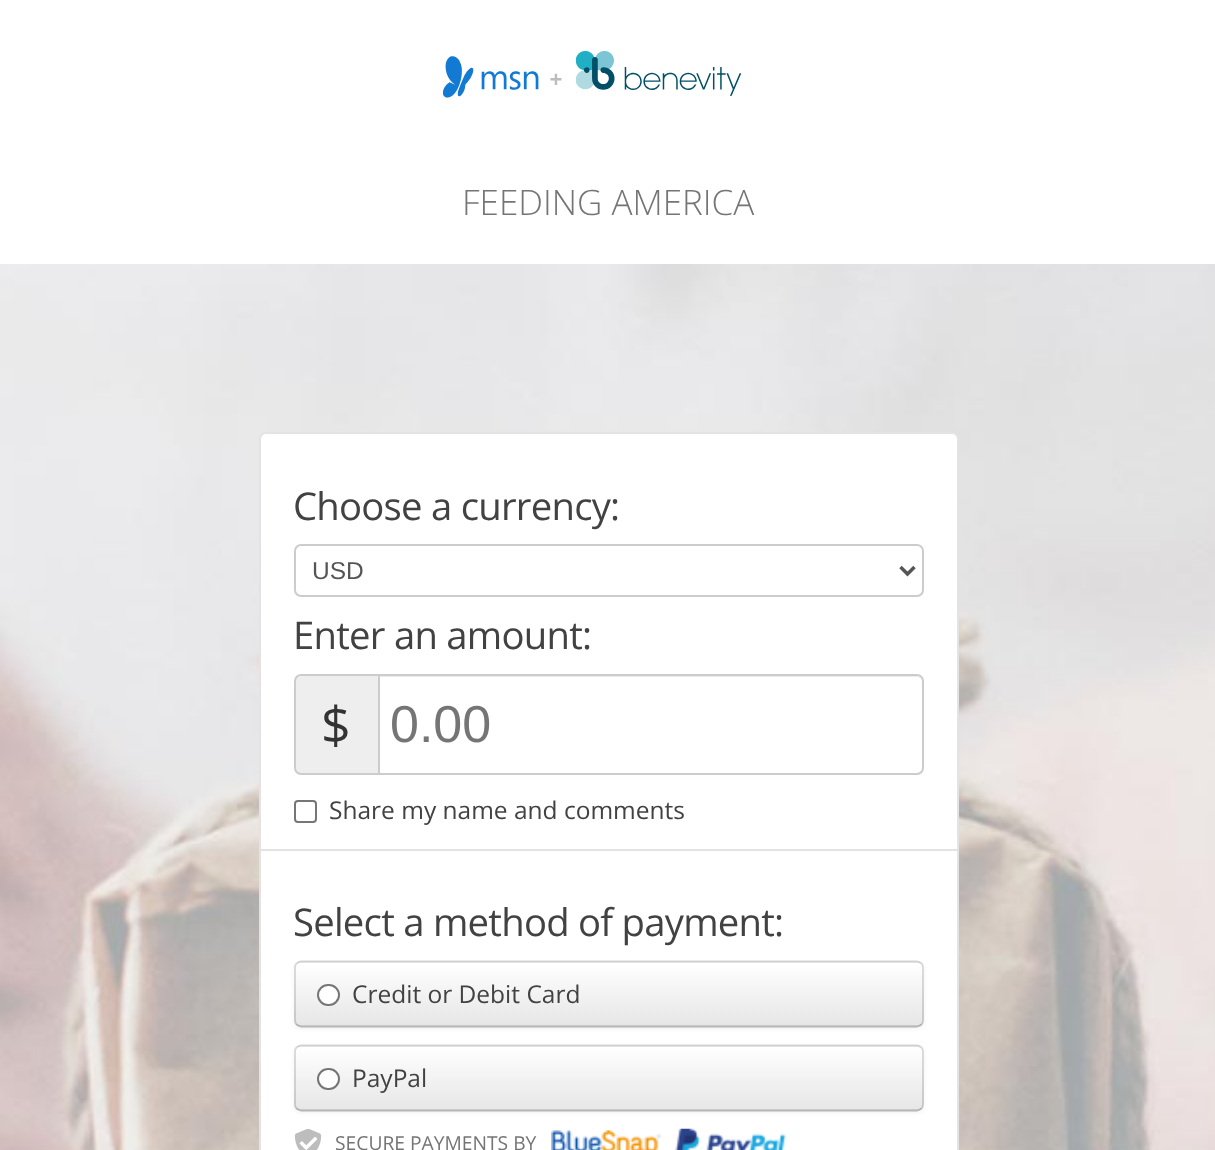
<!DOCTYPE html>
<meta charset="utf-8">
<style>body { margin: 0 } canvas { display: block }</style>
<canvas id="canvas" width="1215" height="1150"></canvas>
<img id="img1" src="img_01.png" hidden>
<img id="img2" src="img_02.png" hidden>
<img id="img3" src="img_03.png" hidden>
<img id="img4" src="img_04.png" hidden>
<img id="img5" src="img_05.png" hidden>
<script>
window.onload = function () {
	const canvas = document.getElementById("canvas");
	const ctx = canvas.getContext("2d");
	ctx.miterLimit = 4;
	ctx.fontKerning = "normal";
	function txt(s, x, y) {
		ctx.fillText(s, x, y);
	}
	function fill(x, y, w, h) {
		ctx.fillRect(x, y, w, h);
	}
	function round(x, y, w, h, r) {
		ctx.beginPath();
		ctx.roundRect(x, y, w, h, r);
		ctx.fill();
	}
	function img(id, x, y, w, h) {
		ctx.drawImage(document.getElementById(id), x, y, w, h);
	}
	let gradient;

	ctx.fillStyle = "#FFFFFF";
	fill(0, 0, 1215, 1150);
	img("img1", 0, 264, 1215, 886);
	img("img2", 443, 51, 299, 47);
	ctx.beginPath();
	ctx.roundRect(260, 433, 698, 455, 6);
	ctx.fill();
	ctx.strokeStyle = "#E3E3E3";
	ctx.lineWidth = 2;
	ctx.stroke();
	ctx.beginPath();
	ctx.roundRect(295, 545, 628, 51, 6);
	ctx.strokeStyle = "#CCCCCC";
	ctx.stroke();
	ctx.beginPath();
	ctx.moveTo(900.5, 567);
	ctx.lineTo(907.5, 574);
	ctx.lineTo(914.5, 567);
	ctx.strokeStyle = "#555555";
	ctx.lineWidth = 3.5;
	ctx.stroke();
	ctx.fillStyle = "#EEEEEE";
	ctx.beginPath();
	ctx.roundRect(295, 675, 84, 99, [6, 0, 0, 6]);
	ctx.fill();
	ctx.strokeStyle = "#CCCCCC";
	ctx.lineWidth = 2;
	ctx.stroke();
	ctx.fillStyle = "#FFFFFF";
	ctx.beginPath();
	ctx.roundRect(378, 674, 546, 101, [0, 7, 7, 0]);
	ctx.fill();
	ctx.fillStyle = "#ECECEC";
	ctx.beginPath();
	ctx.moveTo(380, 677);
	ctx.lineTo(917, 677);
	ctx.bezierCurveTo(920, 677, 922, 680, 922, 682);
	ctx.bezierCurveTo(922, 679, 920, 676, 917, 676);
	ctx.lineTo(380, 676);
	ctx.closePath();
	ctx.fill();
	ctx.beginPath();
	ctx.roundRect(379, 675, 544, 99, [0, 6, 6, 0]);
	ctx.stroke();
	ctx.beginPath();
	ctx.roundRect(295, 801, 21, 21, 3);
	ctx.strokeStyle = "#767676";
	ctx.stroke();
	ctx.fillStyle = "#FFFFFF";
	fill(261, 883, 696, 267);
	ctx.strokeStyle = "#E3E3E3";
	ctx.strokeRect(260, 850, 698, 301);
	ctx.fillStyle = "rgba(0, 0, 0, 0.05)";
	ctx.filter = "blur(2px)";
	ctx.beginPath();
	ctx.roundRect(294, 963, 630, 66, 7);
	ctx.fill();
	ctx.filter = "none";
	ctx.fillStyle = "#F5F5F5";
	round(294, 961, 630, 66, 7);
	ctx.save();
	ctx.beginPath();
	ctx.roundRect(294, 961, 630, 66, 7);
	ctx.clip();
	gradient = ctx.createLinearGradient(609, 963, 609, 1026);
	gradient.addColorStop(0, "#FFFFFF");
	gradient.addColorStop(1, "#E6E6E6");
	ctx.fillStyle = gradient;
	fill(294, 963, 630, 63);
	ctx.restore();
	ctx.beginPath();
	ctx.moveTo(921.5, 1024.5);
	ctx.bezierCurveTo(920, 1025.5, 918.5, 1026.5, 917, 1026.5);
	ctx.lineTo(301, 1026.5);
	ctx.bezierCurveTo(299.5, 1026.5, 298, 1025.5, 296.5, 1024.5);
	ctx.strokeStyle = "rgba(0, 0, 0, 0.25)";
	ctx.lineWidth = 1.8;
	ctx.stroke();
	ctx.beginPath();
	ctx.moveTo(296.5, 1024.5);
	ctx.bezierCurveTo(295.5, 1023.5, 295, 1022, 295, 1020);
	ctx.lineTo(295, 968);
	ctx.bezierCurveTo(295, 966, 295.5, 964.5, 296.5, 963.5);
	ctx.bezierCurveTo(298, 962.5, 299.5, 961.5, 301, 961.5);
	ctx.lineTo(917, 961.5);
	ctx.bezierCurveTo(918.5, 961.5, 920, 962.5, 921.5, 963.5);
	ctx.bezierCurveTo(922.5, 964.5, 923, 966, 923, 968);
	ctx.lineTo(923, 1020);
	ctx.bezierCurveTo(923, 1022, 922.5, 1023.5, 921.5, 1024.5);
	ctx.strokeStyle = "rgba(0, 0, 0, 0.15)";
	ctx.stroke();
	ctx.fillStyle = "#FFFFFF";
	ctx.beginPath();
	ctx.roundRect(318, 985, 21, 20, 10);
	ctx.fill();
	ctx.strokeStyle = "#767676";
	ctx.lineWidth = 2;
	ctx.stroke();
	ctx.fillStyle = "rgba(0, 0, 0, 0.05)";
	ctx.filter = "blur(2px)";
	ctx.beginPath();
	ctx.roundRect(294, 1047, 630, 66, 7);
	ctx.fill();
	ctx.filter = "none";
	ctx.fillStyle = "#F5F5F5";
	round(294, 1045, 630, 66, 7);
	ctx.save();
	ctx.beginPath();
	ctx.roundRect(294, 1045, 630, 66, 7);
	ctx.clip();
	gradient = ctx.createLinearGradient(609, 1047, 609, 1110);
	gradient.addColorStop(0, "#FFFFFF");
	gradient.addColorStop(1, "#E6E6E6");
	ctx.fillStyle = gradient;
	fill(294, 1047, 630, 63);
	ctx.restore();
	ctx.beginPath();
	ctx.moveTo(921.5, 1108.5);
	ctx.bezierCurveTo(920, 1109.5, 918.5, 1110.5, 917, 1110.5);
	ctx.lineTo(301, 1110.5);
	ctx.bezierCurveTo(299.5, 1110.5, 298, 1109.5, 296.5, 1108.5);
	ctx.strokeStyle = "rgba(0, 0, 0, 0.25)";
	ctx.lineWidth = 1.8;
	ctx.stroke();
	ctx.beginPath();
	ctx.moveTo(296.5, 1108.5);
	ctx.bezierCurveTo(295.5, 1107.5, 295, 1106, 295, 1104);
	ctx.lineTo(295, 1052);
	ctx.bezierCurveTo(295, 1050, 295.5, 1048.5, 296.5, 1047.5);
	ctx.bezierCurveTo(298, 1046.5, 299.5, 1045.5, 301, 1045.5);
	ctx.lineTo(917, 1045.5);
	ctx.bezierCurveTo(918.5, 1045.5, 920, 1046.5, 921.5, 1047.5);
	ctx.bezierCurveTo(922.5, 1048.5, 923, 1050, 923, 1052);
	ctx.lineTo(923, 1104);
	ctx.bezierCurveTo(923, 1106, 922.5, 1107.5, 921.5, 1108.5);
	ctx.strokeStyle = "rgba(0, 0, 0, 0.15)";
	ctx.stroke();
	ctx.fillStyle = "#FFFFFF";
	ctx.beginPath();
	ctx.roundRect(318, 1069, 21, 20, 10);
	ctx.fill();
	ctx.strokeStyle = "#767676";
	ctx.lineWidth = 2;
	ctx.stroke();
	img("img3", 294, 1129, 28, 21);
	img("img4", 551, 1130, 111, 20);
	img("img5", 675, 1128, 111, 22);
	ctx.font = "300 35px Open Sans";
	ctx.fillStyle = "#757575";
	txt("FEEDING AMERICA", 462, 215);
	ctx.letterSpacing = "-0.75px";
	ctx.font = "38.25px Open Sans";
	ctx.fillStyle = "#424242";
	txt("Choose a currency:", 293, 520);
	ctx.letterSpacing = "0px";
	ctx.font = "24.5px Liberation Sans";
	ctx.fillStyle = "#555555";
	txt("USD", 312, 579);
	ctx.letterSpacing = "-0.75px";
	ctx.font = "38.25px Open Sans";
	ctx.fillStyle = "#424242";
	txt("Enter an amount:", 293, 649);
	ctx.letterSpacing = "0px";
	ctx.font = "52px Open Sans";
	ctx.fillStyle = "#333333";
	txt("$", 321, 744);
	ctx.font = "52px Liberation Sans";
	ctx.fillStyle = "#757575";
	txt("0.00", 390, 742);
	ctx.font = "24.5px Open Sans";
	ctx.fillStyle = "#424242";
	txt("Share my name and comments", 329, 819);
	ctx.letterSpacing = "-0.75px";
	ctx.font = "38.25px Open Sans";
	txt("Select a method of payment:", 293, 936);
	ctx.letterSpacing = "0px";
	ctx.font = "24.5px Open Sans";
	txt("Credit or Debit Card", 352, 1003);
	txt("PayPal", 352, 1087);
	ctx.font = "19.25px Open Sans";
	ctx.fillStyle = "#757575";
	txt("SECURE PAYMENTS BY", 335, 1150);
};
</script>
